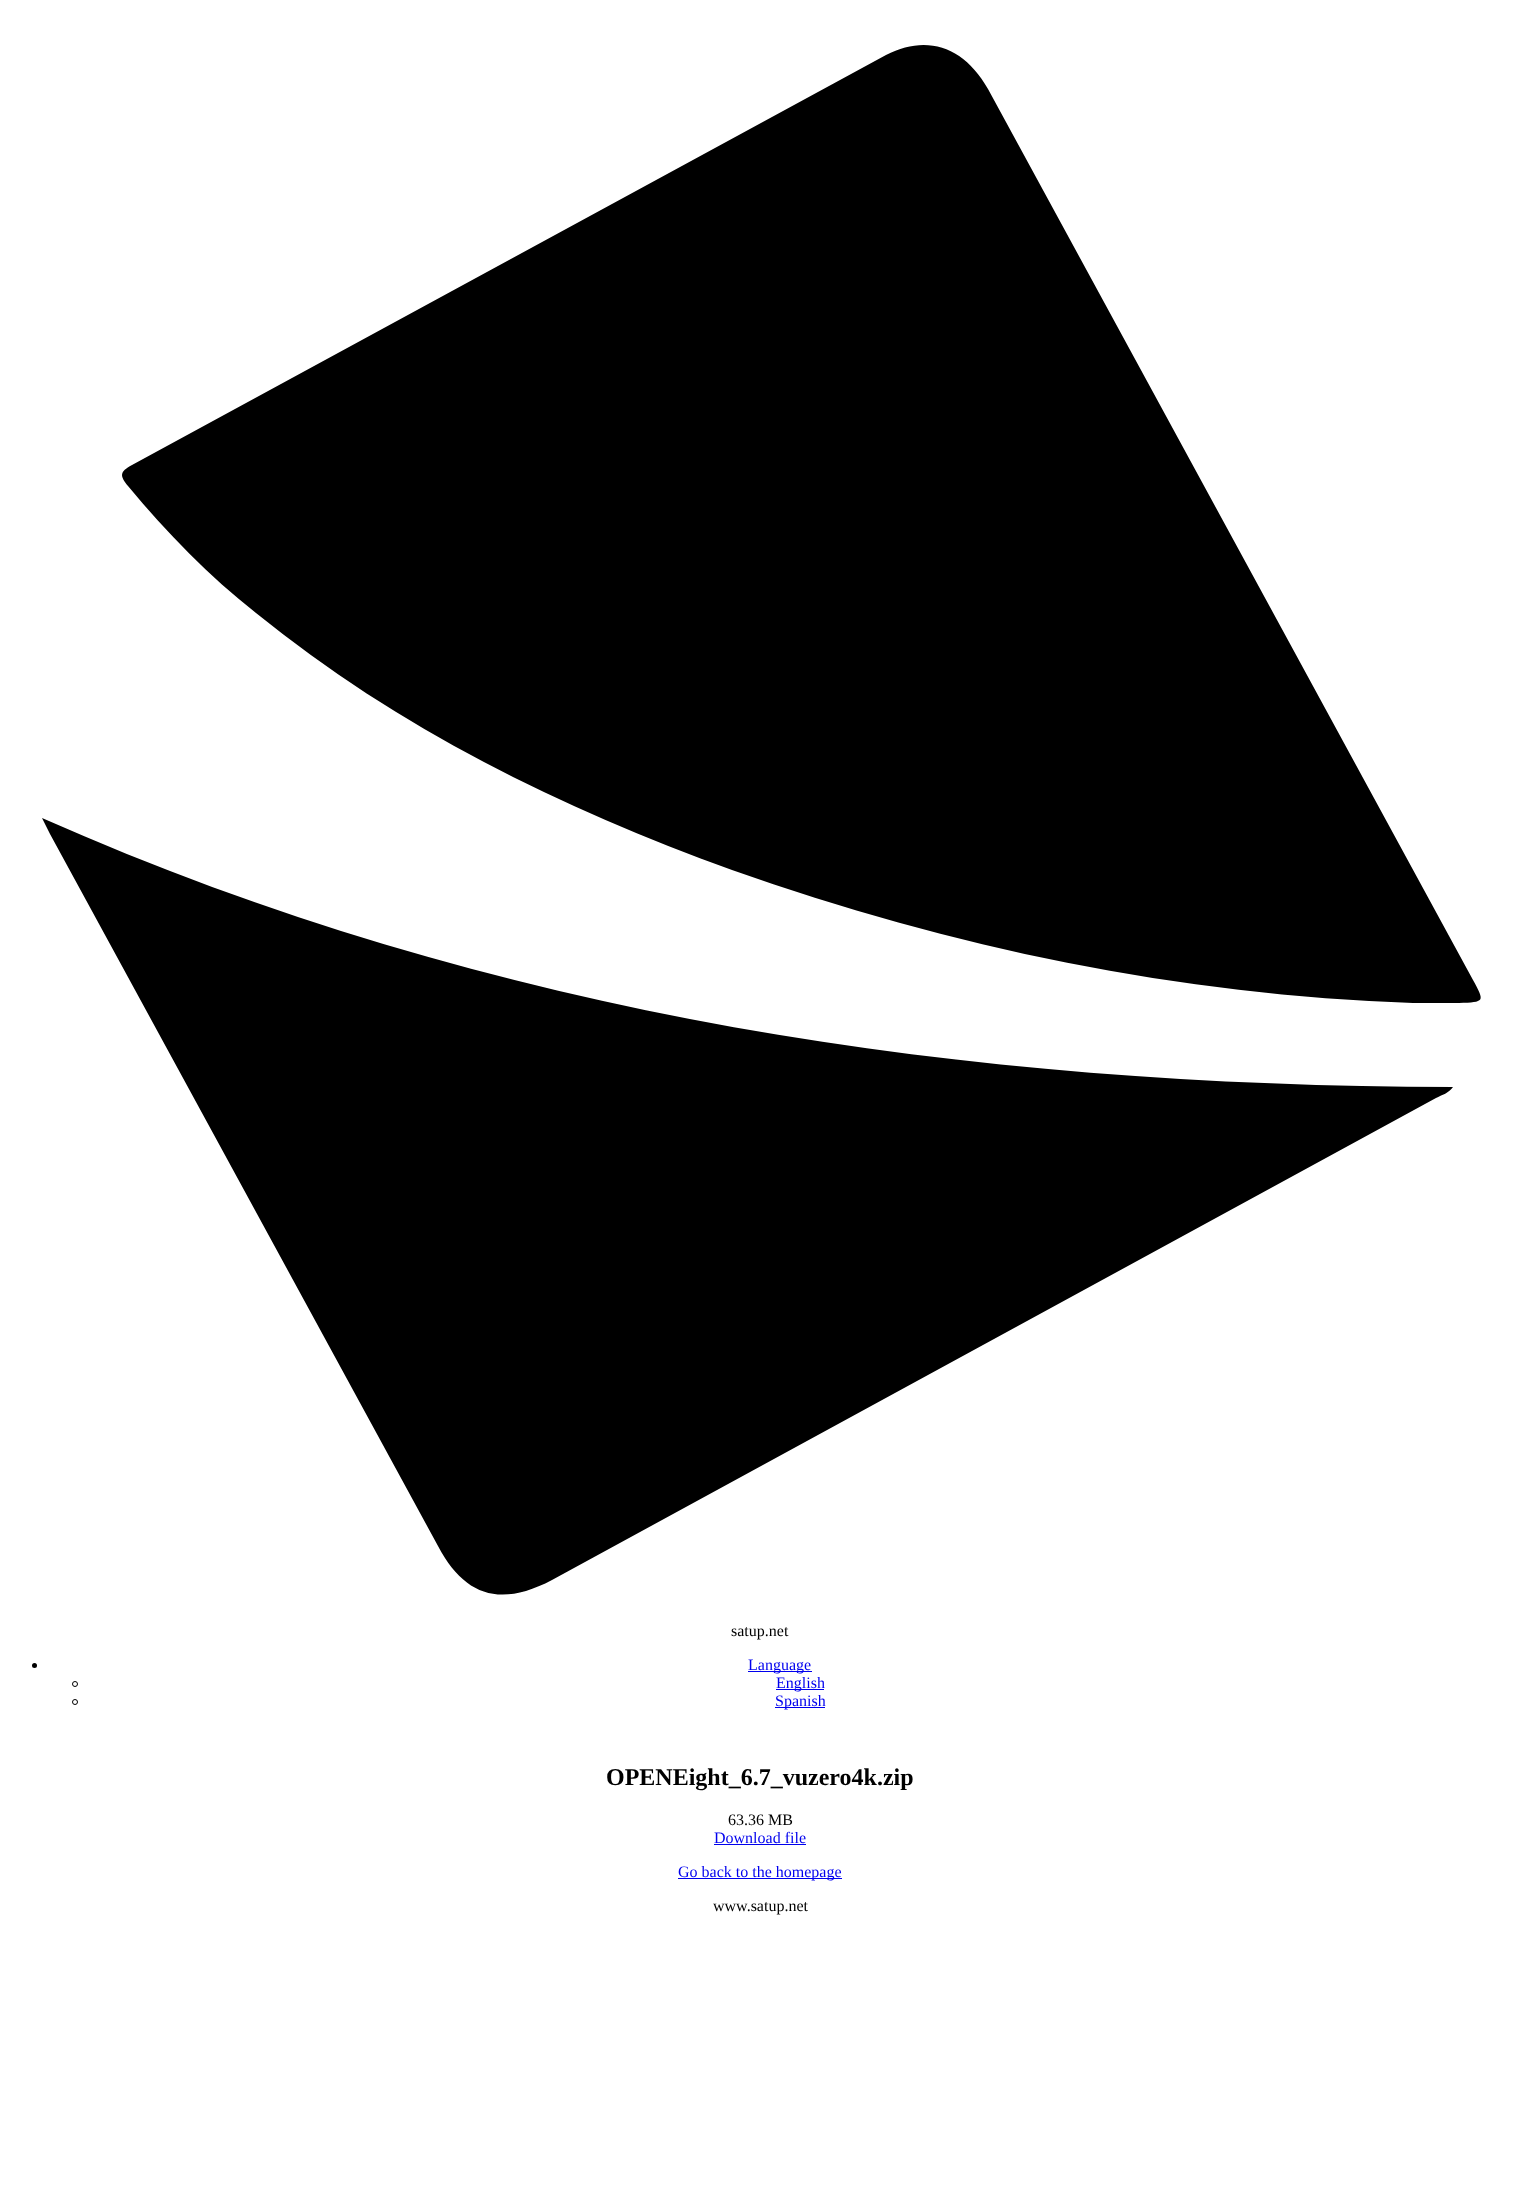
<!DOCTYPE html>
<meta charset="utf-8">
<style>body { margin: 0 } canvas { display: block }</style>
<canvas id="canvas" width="1520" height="2200"></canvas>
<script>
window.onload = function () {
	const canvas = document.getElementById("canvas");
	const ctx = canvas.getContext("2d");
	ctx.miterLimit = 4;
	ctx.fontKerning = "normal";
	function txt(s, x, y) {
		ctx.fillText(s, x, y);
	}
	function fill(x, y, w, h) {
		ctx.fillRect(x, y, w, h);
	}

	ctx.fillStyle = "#FFFFFF";
	fill(0, 0, 1520, 2200);
	ctx.fillStyle = "#000000";
	ctx.beginPath();
	ctx.moveTo(1473, 980);
	ctx.lineTo(988, 89);
	ctx.bezierCurveTo(964, 46, 926, 34, 886, 55);
	ctx.lineTo(132, 465);
	ctx.bezierCurveTo(119, 472, 120, 476, 128, 486);
	ctx.bezierCurveTo(167, 533, 209, 576, 256, 613);
	ctx.bezierCurveTo(399, 729, 561, 808, 732, 870);
	ctx.bezierCurveTo(952, 948, 1179, 995, 1413, 1003);
	ctx.lineTo(1459, 1003);
	ctx.bezierCurveTo(1485, 1002, 1485, 1002, 1473, 980);
	ctx.closePath();
	ctx.fill();
	ctx.beginPath();
	ctx.moveTo(50, 834);
	ctx.lineTo(438, 1546);
	ctx.bezierCurveTo(465, 1597, 501, 1607, 552, 1580);
	ctx.lineTo(1436, 1098);
	ctx.bezierCurveTo(1442, 1095, 1449, 1093, 1453, 1087);
	ctx.bezierCurveTo(966, 1086, 493, 1018, 42, 818);
	ctx.closePath();
	ctx.fill();
	ctx.beginPath();
	ctx.arc(34.5, 1665.5, 2.5, 0, Math.PI * 2);
	ctx.fill();
	ctx.fillStyle = "#0000EE";
	fill(748, 1671, 64, 1);
	ctx.beginPath();
	ctx.arc(75, 1684, 2.5, 0, Math.PI * 2);
	ctx.strokeStyle = "#000000";
	ctx.stroke();
	fill(776, 1689, 48, 1);
	ctx.beginPath();
	ctx.arc(75, 1702, 2.5, 0, Math.PI * 2);
	ctx.stroke();
	fill(775, 1707, 50, 1);
	fill(714, 1844, 92, 1);
	fill(678, 1878, 164, 1);
	ctx.font = "16px Liberation Serif";
	ctx.fillStyle = "#000000";
	txt("satup.net", 731, 1636);
	ctx.fillStyle = "#0000EE";
	txt("Language", 748, 1670);
	txt("English", 776, 1688);
	txt("Spanish", 775, 1706);
	ctx.font = "bold 24px Liberation Serif";
	ctx.fillStyle = "#000000";
	txt("OPENEight_6.7_vuzero4k.zip", 606, 1785);
	ctx.font = "16px Liberation Serif";
	txt("63.36 MB", 728, 1825);
	ctx.fillStyle = "#0000EE";
	txt("Download file", 714, 1843);
	txt("Go back to the homepage", 678, 1877);
	ctx.fillStyle = "#000000";
	txt("www.satup.net", 713, 1911);
};
</script>
